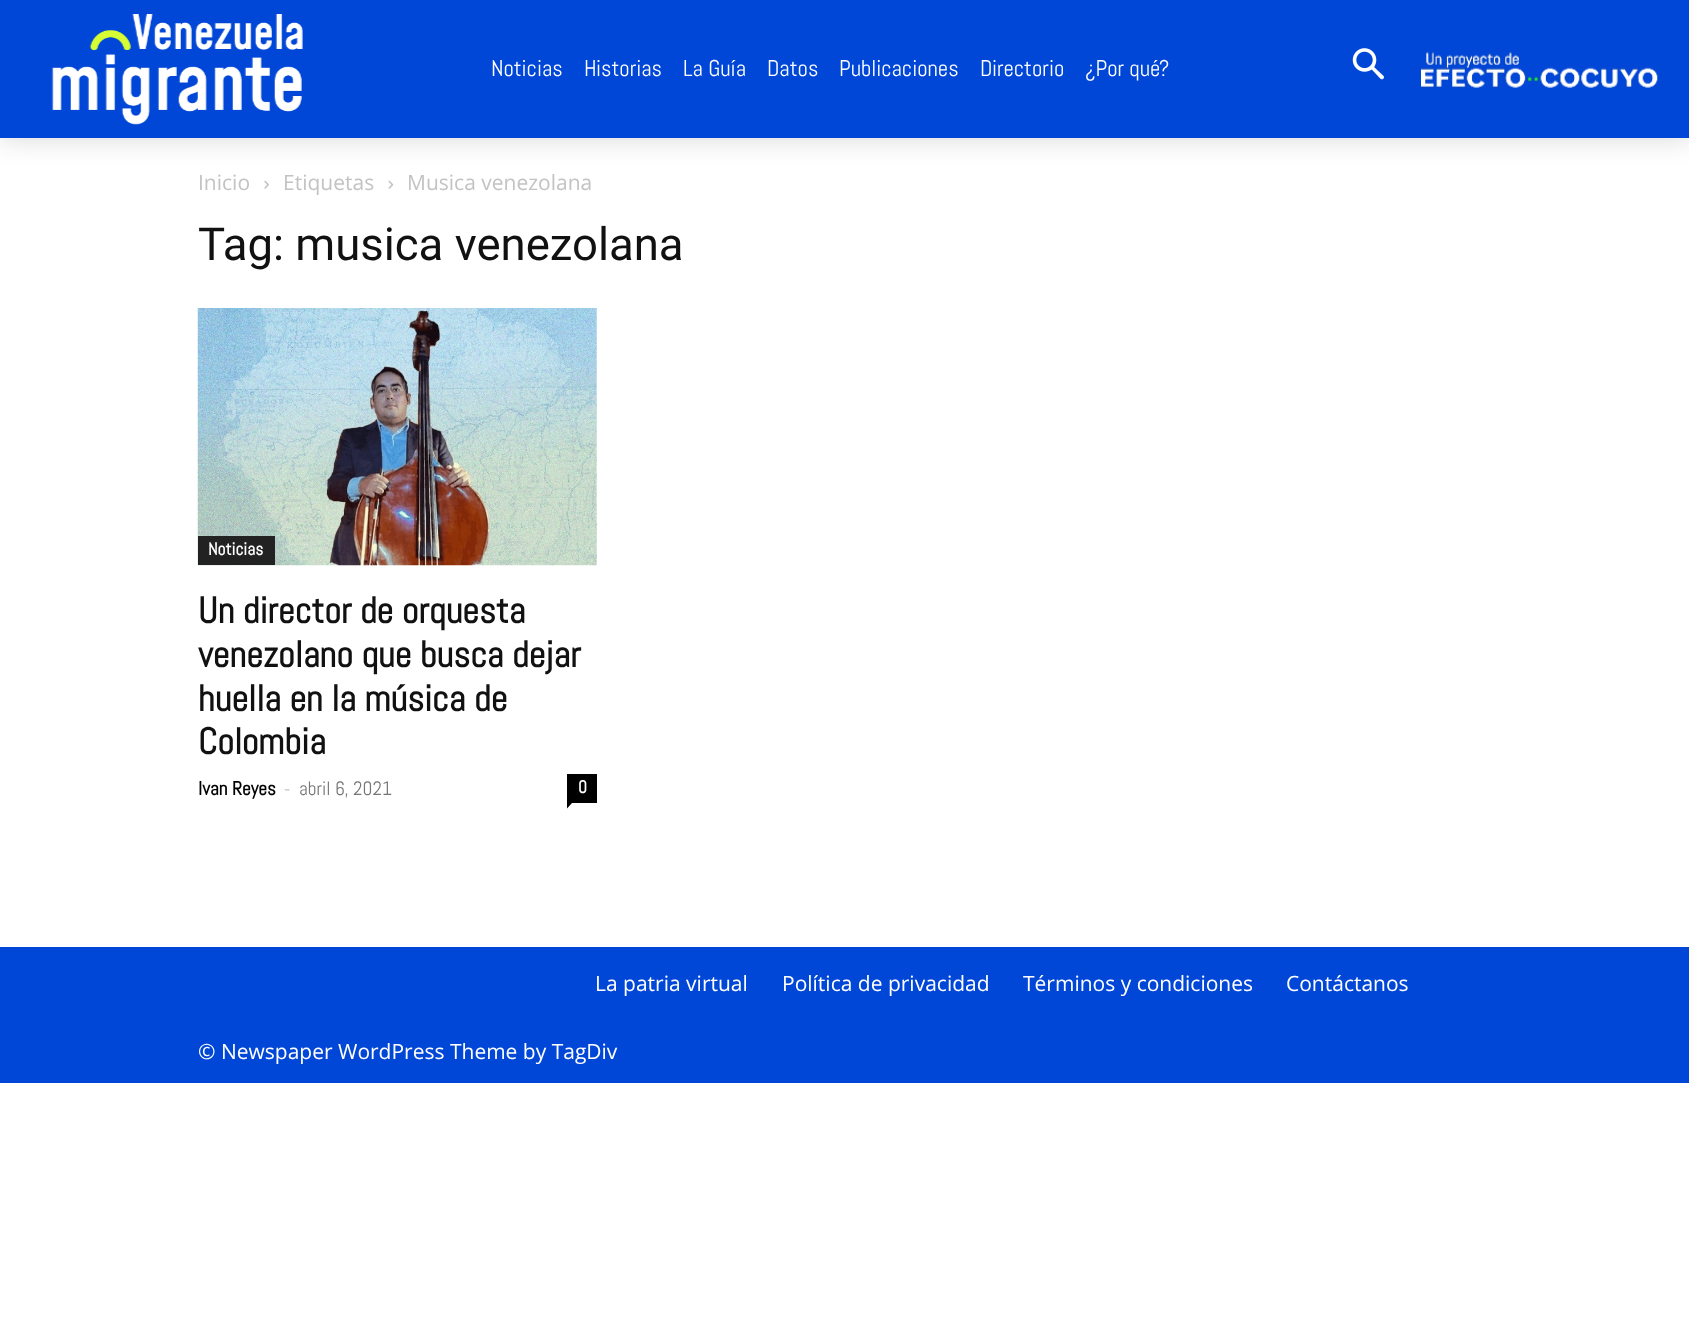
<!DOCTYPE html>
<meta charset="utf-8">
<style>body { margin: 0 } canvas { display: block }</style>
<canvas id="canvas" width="1689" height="1344"></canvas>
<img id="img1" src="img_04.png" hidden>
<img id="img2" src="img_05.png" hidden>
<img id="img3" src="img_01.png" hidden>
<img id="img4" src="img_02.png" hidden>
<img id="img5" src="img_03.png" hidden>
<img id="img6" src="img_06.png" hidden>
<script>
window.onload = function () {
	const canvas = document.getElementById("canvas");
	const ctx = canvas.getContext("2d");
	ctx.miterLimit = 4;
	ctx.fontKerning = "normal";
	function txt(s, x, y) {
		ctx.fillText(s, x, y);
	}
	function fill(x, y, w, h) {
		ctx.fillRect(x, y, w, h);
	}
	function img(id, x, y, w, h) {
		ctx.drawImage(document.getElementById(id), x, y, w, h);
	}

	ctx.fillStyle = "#FFFFFF";
	fill(0, 0, 1689, 1344);
	img("img1", 264, 180, 5, 9);
	img("img2", 388, 180, 6, 9);
	ctx.fillStyle = "rgba(0, 0, 0, 0.16)";
	ctx.filter = "blur(14px)";
	ctx.beginPath();
	ctx.rect(0, 0, 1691, 138);
	ctx.fill();
	ctx.filter = "none";
	ctx.fillStyle = "#0047D7";
	fill(0, 0, 1689, 138);
	img("img3", 51, 14, 252, 111);
	img("img4", 1352, 48, 32, 32);
	img("img5", 1421, 51, 237, 37);
	img("img6", 197, 308, 400, 258);
	ctx.fillStyle = "#222222";
	fill(198, 536, 77, 29);
	ctx.fillStyle = "#000000";
	fill(567, 774, 30, 29);
	ctx.beginPath();
	ctx.moveTo(567, 803);
	ctx.lineTo(572, 803);
	ctx.lineTo(567, 808.5);
	ctx.closePath();
	ctx.fill();
	ctx.fillStyle = "#0047D7";
	fill(0, 947, 1689, 136);
	ctx.font = "22.75px Abel";
	ctx.fillStyle = "#FFFFFF";
	txt("Noticias", 491, 76);
	txt("Historias", 584, 76);
	txt("La Guía", 683, 76);
	txt("Datos", 767, 76);
	txt("Publicaciones", 839, 76);
	txt("Directorio", 980, 76);
	txt("¿Por qué?", 1085, 76);
	ctx.font = "21px Open Sans";
	ctx.fillStyle = "#C3C3C3";
	txt("Inicio", 198, 190);
	txt("Etiquetas", 283, 190);
	txt("Musica venezolana", 407, 190);
	ctx.font = "45.5px Roboto";
	ctx.fillStyle = "#111111";
	txt("Tag: musica venezolana", 198, 260);
	ctx.font = "bold 17.5px Abel";
	ctx.fillStyle = "#FFFFFF";
	txt("Noticias", 208, 555);
	ctx.font = "bold 36.75px Abel";
	ctx.fillStyle = "#111111";
	txt("Un director de orquesta", 198, 623);
	txt("venezolano que busca dejar", 198, 667);
	txt("huella en la música de", 198, 711);
	txt("Colombia", 198, 754);
	ctx.font = "bold 19.25px Abel";
	ctx.fillStyle = "#000000";
	txt("Ivan Reyes", 198, 795);
	ctx.font = "19.25px Open Sans";
	ctx.fillStyle = "#CCCCCC";
	txt("-", 284, 795);
	ctx.font = "19.25px Abel";
	ctx.fillStyle = "#767676";
	txt("abril 6, 2021", 299, 795);
	ctx.font = "bold 17.5px Abel";
	ctx.fillStyle = "#FFFFFF";
	txt("0", 578, 793);
	ctx.font = "21px Open Sans";
	txt("La patria virtual", 595, 991);
	txt("Política de privacidad", 782, 991);
	txt("Términos y condiciones", 1023, 991);
	txt("Contáctanos", 1286, 991);
	txt("© Newspaper WordPress Theme by TagDiv", 198, 1059);
};
</script>
